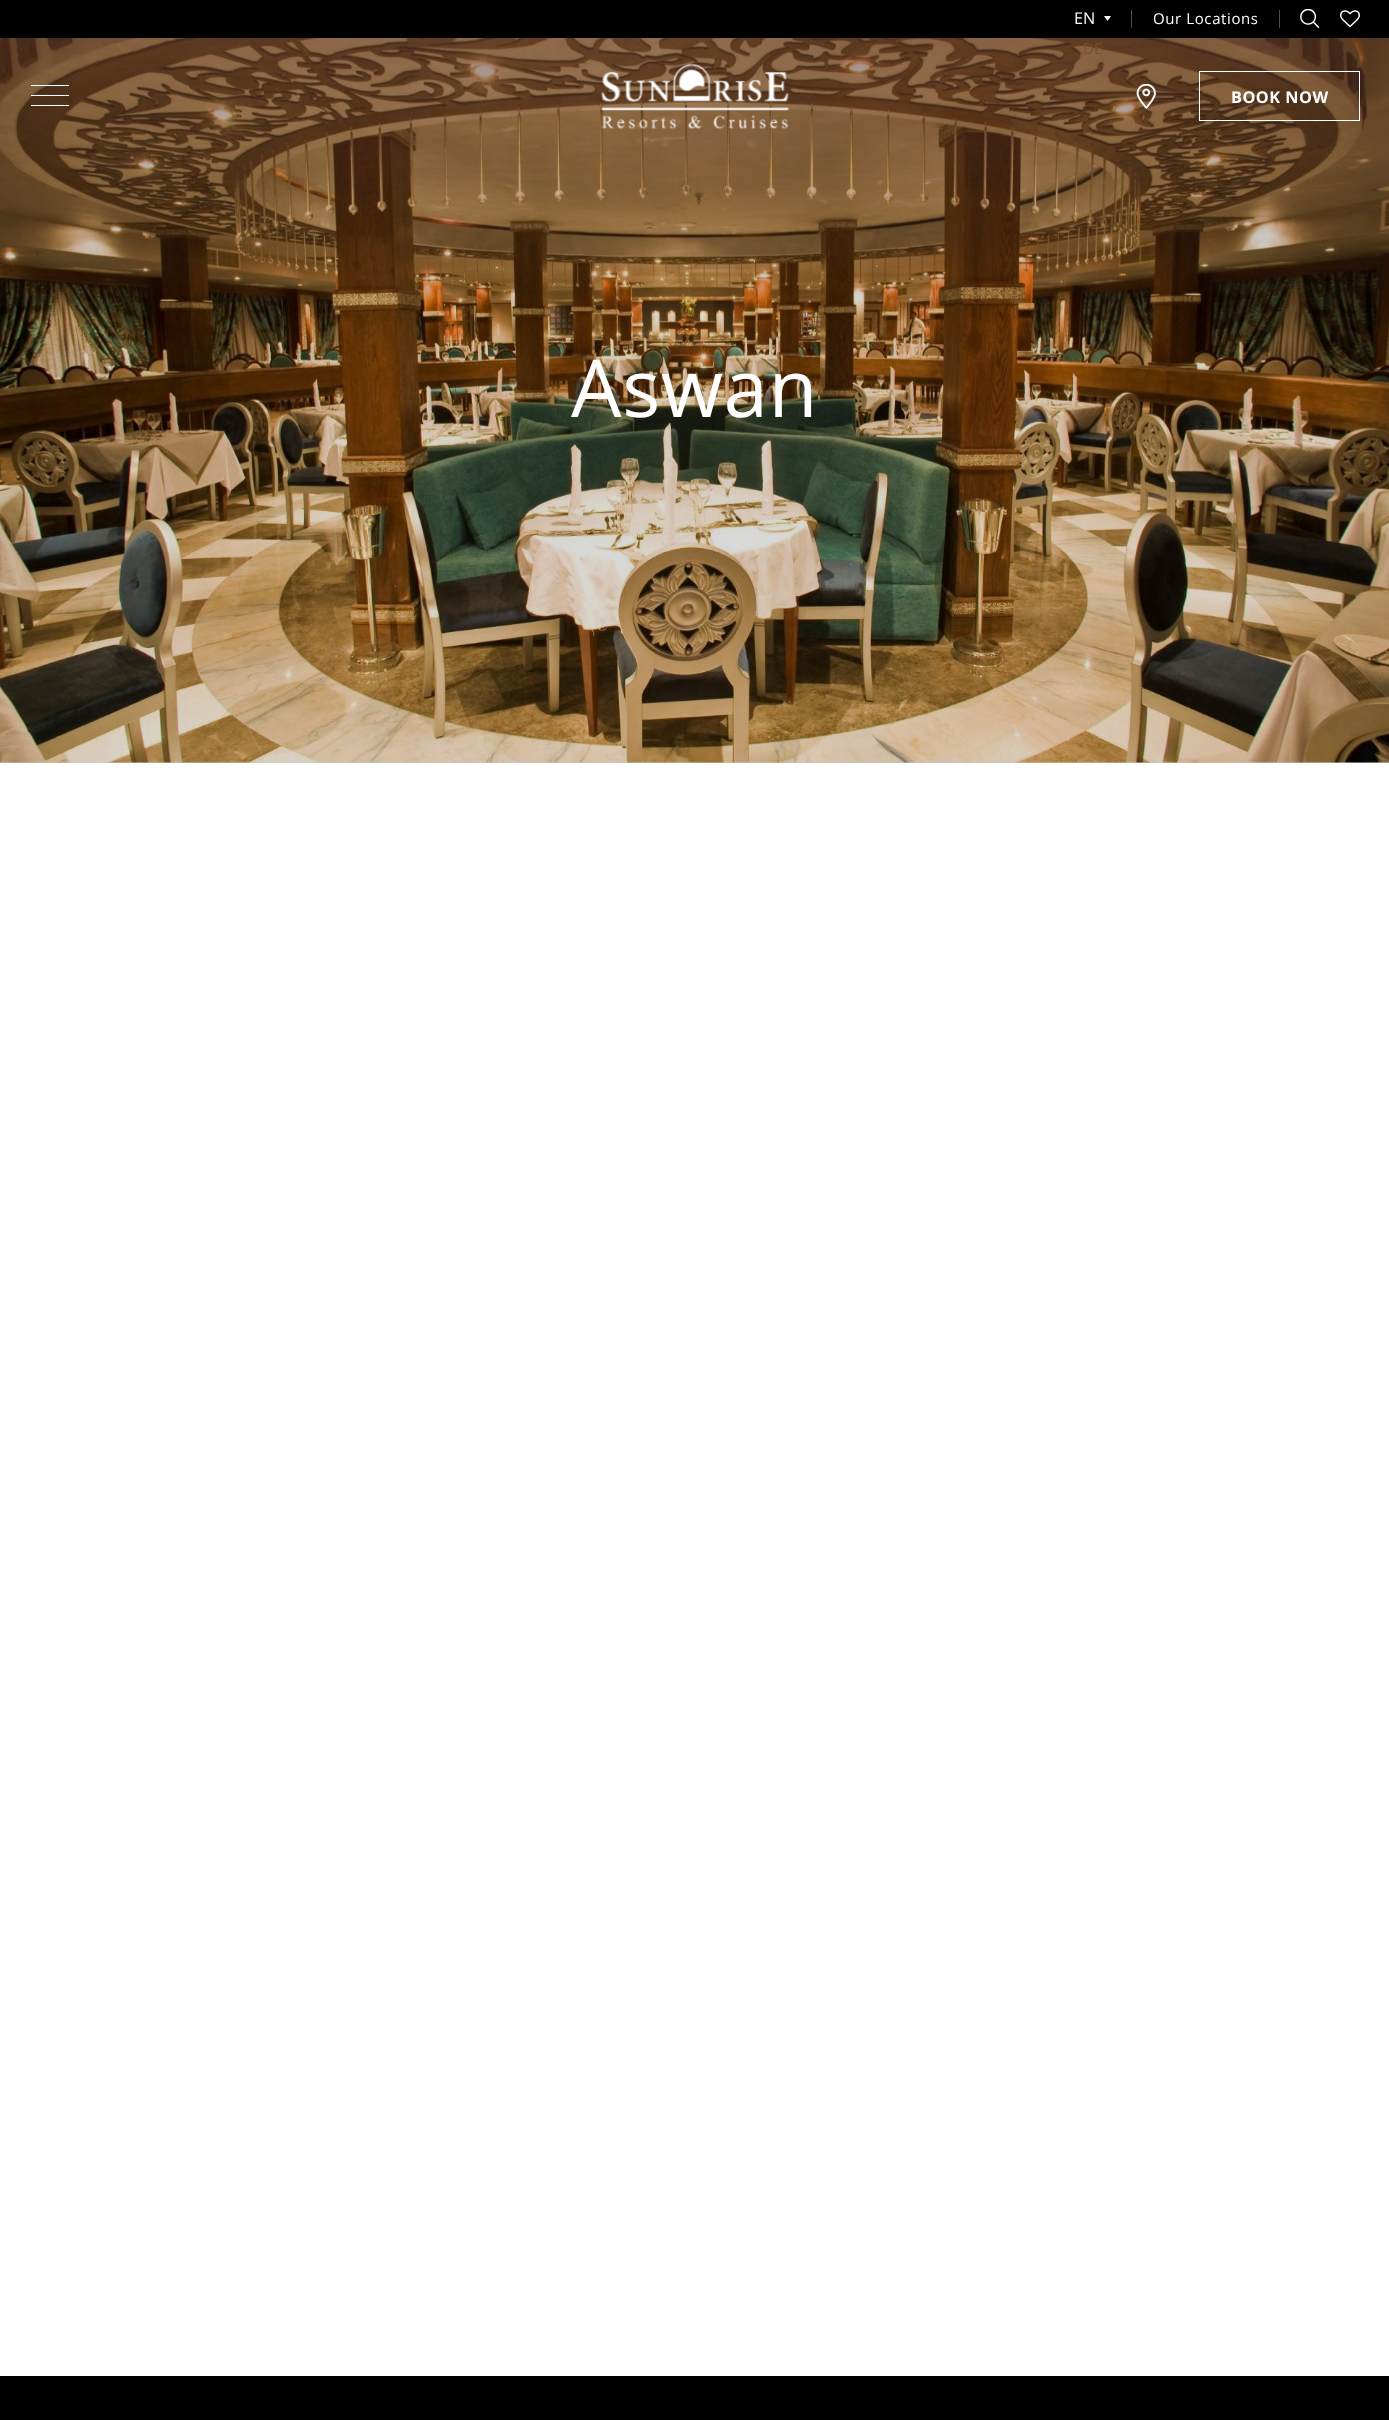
<!DOCTYPE html>
<meta charset="utf-8">
<style>body { margin: 0 } canvas { display: block }</style>
<canvas id="canvas" width="1389" height="2420"></canvas>
<img id="img1" src="img_01.png" hidden>
<img id="img2" src="img_02.png" hidden>
<img id="img3" src="img_05.png" hidden>
<img id="img4" src="img_03.png" hidden>
<img id="img5" src="img_04.png" hidden>
<script>
window.onload = function () {
	const canvas = document.getElementById("canvas");
	const ctx = canvas.getContext("2d");
	ctx.miterLimit = 4;
	ctx.fontKerning = "normal";
	function txt(s, x, y) {
		ctx.fillText(s, x, y);
	}
	function fill(x, y, w, h) {
		ctx.fillRect(x, y, w, h);
	}
	function img(id, x, y, w, h) {
		ctx.drawImage(document.getElementById(id), x, y, w, h);
	}

	ctx.fillStyle = "#FFFFFF";
	fill(0, 0, 1389, 2420);
	ctx.fillStyle = "#000000";
	fill(0, 0, 1389, 38);
	ctx.fillStyle = "#FFFFFF";
	ctx.beginPath();
	ctx.moveTo(1104, 16);
	ctx.lineTo(1111, 16);
	ctx.lineTo(1107.5, 21);
	ctx.closePath();
	ctx.fill();
	ctx.fillStyle = "#4D4D4D";
	fill(1131, 10, 1, 18);
	fill(1279, 10, 1, 18);
	img("img1", 1300, 9, 20, 19);
	img("img2", 1340, 10, 20, 18);
	ctx.fillStyle = "#C8C9C9";
	fill(0, 762, 1389, 1);
	img("img3", 0, 38, 1389, 725);
	ctx.fillStyle = "#FFFFFF";
	fill(31, 85, 38, 1);
	fill(31, 95, 38, 1);
	fill(31, 105, 38, 1);
	img("img4", 600, 63, 190, 67);
	img("img5", 1136, 84, 20, 25);
	ctx.strokeStyle = "#FFFFFF";
	ctx.strokeRect(1199.5, 71.5, 160, 49);
	ctx.fillStyle = "#000000";
	fill(0, 2376, 1389, 44);
	ctx.font = "16.25px Open Sans";
	ctx.fillStyle = "#FFFFFF";
	txt("EN", 1074, 24);
	ctx.font = "15px Open Sans";
	ctx.fillStyle = "#765133";
	txt("DE", 1083, 54);
	ctx.letterSpacing = "0.6px";
	ctx.fillStyle = "#FFFFFF";
	txt("Our Locations", 1153, 24);
	ctx.letterSpacing = "0.5px";
	ctx.font = "bold 16.25px Open Sans";
	txt("BOOK NOW", 1231, 103);
	ctx.letterSpacing = "0.6px";
	ctx.font = "80px Open Sans";
	txt("Aswan", 571, 417);
};
</script>
